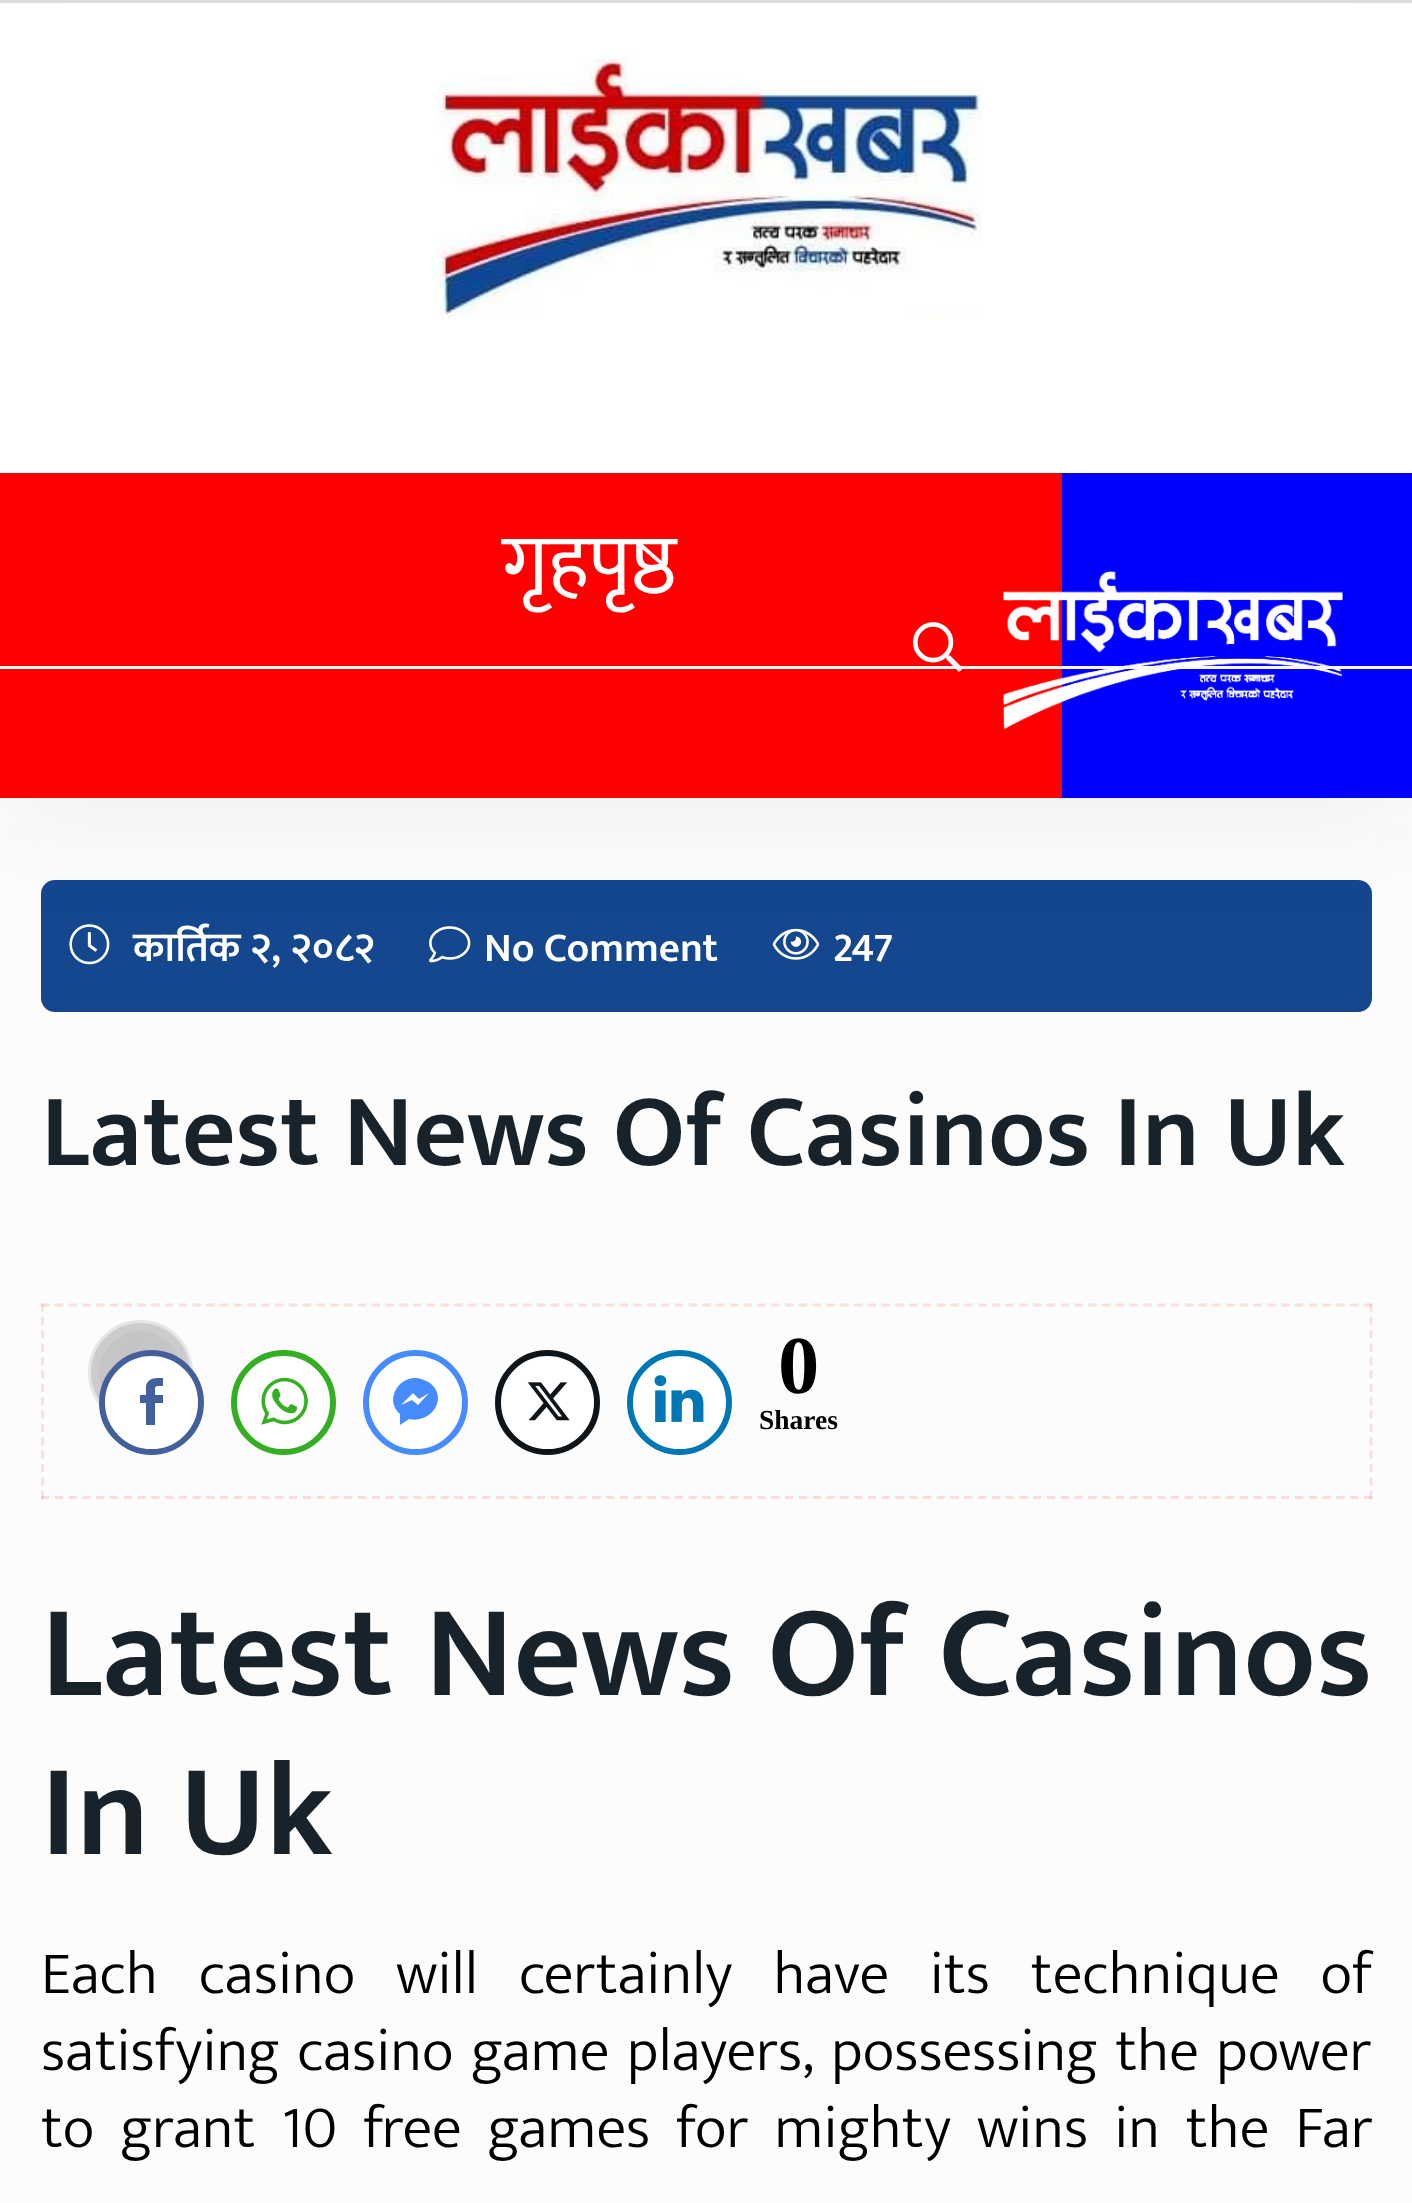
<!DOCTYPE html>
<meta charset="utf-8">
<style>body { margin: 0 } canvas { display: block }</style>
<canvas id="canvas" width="1412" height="2203"></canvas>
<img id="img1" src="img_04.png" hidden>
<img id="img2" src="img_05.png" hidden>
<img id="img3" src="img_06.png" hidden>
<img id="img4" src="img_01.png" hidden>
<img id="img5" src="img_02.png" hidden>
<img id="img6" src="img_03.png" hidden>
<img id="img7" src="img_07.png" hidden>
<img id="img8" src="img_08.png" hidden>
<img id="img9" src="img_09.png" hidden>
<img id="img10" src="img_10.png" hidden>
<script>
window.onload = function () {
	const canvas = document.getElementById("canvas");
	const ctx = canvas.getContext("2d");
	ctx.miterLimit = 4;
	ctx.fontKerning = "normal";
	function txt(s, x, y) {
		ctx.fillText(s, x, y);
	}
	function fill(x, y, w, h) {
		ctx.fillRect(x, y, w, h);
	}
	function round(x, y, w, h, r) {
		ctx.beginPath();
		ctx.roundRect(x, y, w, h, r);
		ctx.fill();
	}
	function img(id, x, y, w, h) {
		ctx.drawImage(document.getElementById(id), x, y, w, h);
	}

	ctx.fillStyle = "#FCFCFC";
	fill(0, 0, 1412, 2203);
	ctx.fillStyle = "#DCDEDF";
	fill(0, 0, 1412, 3);
	ctx.fillStyle = "#14478E";
	round(41, 880, 1331, 132, 14);
	img("img1", 69, 924, 41, 41);
	img("img2", 429, 926, 42, 37);
	img("img3", 772, 928, 48, 32);
	ctx.fillStyle = "rgba(23, 34, 43, 0.05)";
	ctx.filter = "blur(55px)";
	ctx.beginPath();
	ctx.rect(0, 30, 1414, 795);
	ctx.fill();
	ctx.filter = "none";
	ctx.fillStyle = "#FFFFFF";
	fill(0, 3, 1412, 470);
	img("img4", 432, 54, 550, 265);
	ctx.fillStyle = "#FF0000";
	fill(0, 473, 1062, 325);
	ctx.fillStyle = "#0000FF";
	fill(1062, 473, 350, 325);
	img("img5", 913, 622, 50, 50);
	img("img6", 1002, 571, 341, 158);
	ctx.fillStyle = "#F8F8F8";
	fill(0, 666, 1412, 3);
	ctx.beginPath();
	ctx.moveTo(41, 1305);
	ctx.lineTo(1372, 1305);
	ctx.strokeStyle = "#FCDEDE";
	ctx.lineWidth = 2.8;
	ctx.setLineDash([8.25, 5.53]);
	ctx.stroke();
	ctx.beginPath();
	ctx.moveTo(1371, 1303.5);
	ctx.lineTo(1371, 1499);
	ctx.strokeStyle = "rgba(255, 0, 0, 0.12)";
	ctx.setLineDash([8.25, 5.12]);
	ctx.stroke();
	ctx.beginPath();
	ctx.moveTo(41, 1497.5);
	ctx.lineTo(1372, 1497.5);
	ctx.setLineDash([8.25, 5.53]);
	ctx.stroke();
	ctx.beginPath();
	ctx.moveTo(42.5, 1303.5);
	ctx.lineTo(42.5, 1499);
	ctx.setLineDash([8.25, 5.12]);
	ctx.stroke();
	ctx.fillStyle = "#CCCCCC";
	ctx.beginPath();
	ctx.arc(140.5, 1372.5, 51, 0, Math.PI * 2);
	ctx.fill();
	ctx.strokeStyle = "#E4E5E6";
	ctx.lineWidth = 3;
	ctx.setLineDash([]);
	ctx.stroke();
	img("img7", 99, 1331, 81, 57);
	ctx.fillStyle = "#FFFFFF";
	ctx.beginPath();
	ctx.arc(151.5, 1402.5, 49.5, 0, Math.PI * 2);
	ctx.fill();
	ctx.strokeStyle = "#43609C";
	ctx.lineWidth = 6;
	ctx.stroke();
	ctx.fillStyle = "#43609C";
	ctx.beginPath();
	ctx.moveTo(140, 1403);
	ctx.lineTo(140, 1395);
	ctx.lineTo(146, 1395);
	ctx.lineTo(146, 1386);
	ctx.bezierCurveTo(148, 1377, 157, 1378, 163, 1378);
	ctx.lineTo(163, 1386);
	ctx.bezierCurveTo(154, 1386, 155, 1385, 155, 1395);
	ctx.lineTo(163, 1395);
	ctx.lineTo(163, 1403);
	ctx.lineTo(155, 1403);
	ctx.lineTo(155, 1425);
	ctx.lineTo(146, 1425);
	ctx.lineTo(146, 1403);
	ctx.closePath();
	ctx.fill();
	ctx.fillStyle = "#FFFFFF";
	ctx.beginPath();
	ctx.arc(283.5, 1402.5, 49.5, 0, Math.PI * 2);
	ctx.fill();
	ctx.strokeStyle = "#34AF23";
	ctx.stroke();
	img("img8", 261, 1377, 47, 48);
	ctx.beginPath();
	ctx.arc(415.5, 1402.5, 49.5, 0, Math.PI * 2);
	ctx.fill();
	ctx.strokeStyle = "#468BFF";
	ctx.stroke();
	ctx.fillStyle = "#468BFF";
	ctx.beginPath();
	ctx.moveTo(415, 1378);
	ctx.bezierCurveTo(397, 1378, 385, 1401, 400, 1414);
	ctx.lineTo(400, 1425);
	ctx.lineTo(409, 1419);
	ctx.bezierCurveTo(431, 1424, 449, 1398, 430, 1383);
	ctx.bezierCurveTo(425, 1380, 420, 1378, 415, 1378);
	ctx.closePath();
	ctx.moveTo(418, 1405);
	ctx.lineTo(412, 1400);
	ctx.lineTo(401, 1405);
	ctx.lineTo(413, 1393);
	ctx.lineTo(419, 1399);
	ctx.lineTo(429, 1393);
	ctx.closePath();
	ctx.fill();
	ctx.fillStyle = "#FFFFFF";
	ctx.beginPath();
	ctx.arc(547.5, 1402.5, 49.5, 0, Math.PI * 2);
	ctx.fill();
	ctx.strokeStyle = "#0F1419";
	ctx.stroke();
	img("img9", 527, 1382, 43, 39);
	ctx.beginPath();
	ctx.arc(679.5, 1402.5, 49.5, 0, Math.PI * 2);
	ctx.fill();
	ctx.strokeStyle = "#0077B5";
	ctx.stroke();
	img("img10", 654, 1375, 50, 47);
	ctx.font = "82.5px Mukta";
	txt("गृहपृष्ठ", 502, 591);
	ctx.font = "600 41.25px Mukta";
	txt("कार्तिक २, २०८२", 133, 961);
	txt("No Comment", 484, 961);
	txt("247", 833, 961);
	ctx.font = "600 104.5px Mukta";
	ctx.fillStyle = "#17222B";
	txt("Latest News Of Casinos In Uk", 41, 1165);
	ctx.font = "bold 82.5px Liberation Serif";
	ctx.fillStyle = "#000000";
	txt("0", 778, 1393);
	ctx.font = "bold 27.5px Liberation Serif";
	txt("Shares", 759, 1429);
	ctx.wordSpacing = "2px";
	ctx.font = "600 132px Mukta";
	ctx.fillStyle = "#17222B";
	txt("Latest News Of Casinos", 41, 1695);
	ctx.wordSpacing = "0px";
	txt("In Uk", 41, 1854);
	ctx.wordSpacing = "27.75px";
	ctx.font = "300 60.5px Mukta";
	ctx.fillStyle = "#000000";
	txt("Each casino will certainly have its technique of", 41, 1993);
	ctx.wordSpacing = "4.25px";
	txt("satisfying casino game players, possessing the power", 41, 2070);
	ctx.wordSpacing = "12.75px";
	txt("to grant 10 free games for mighty wins in the Far", 41, 2147);
};
</script>
